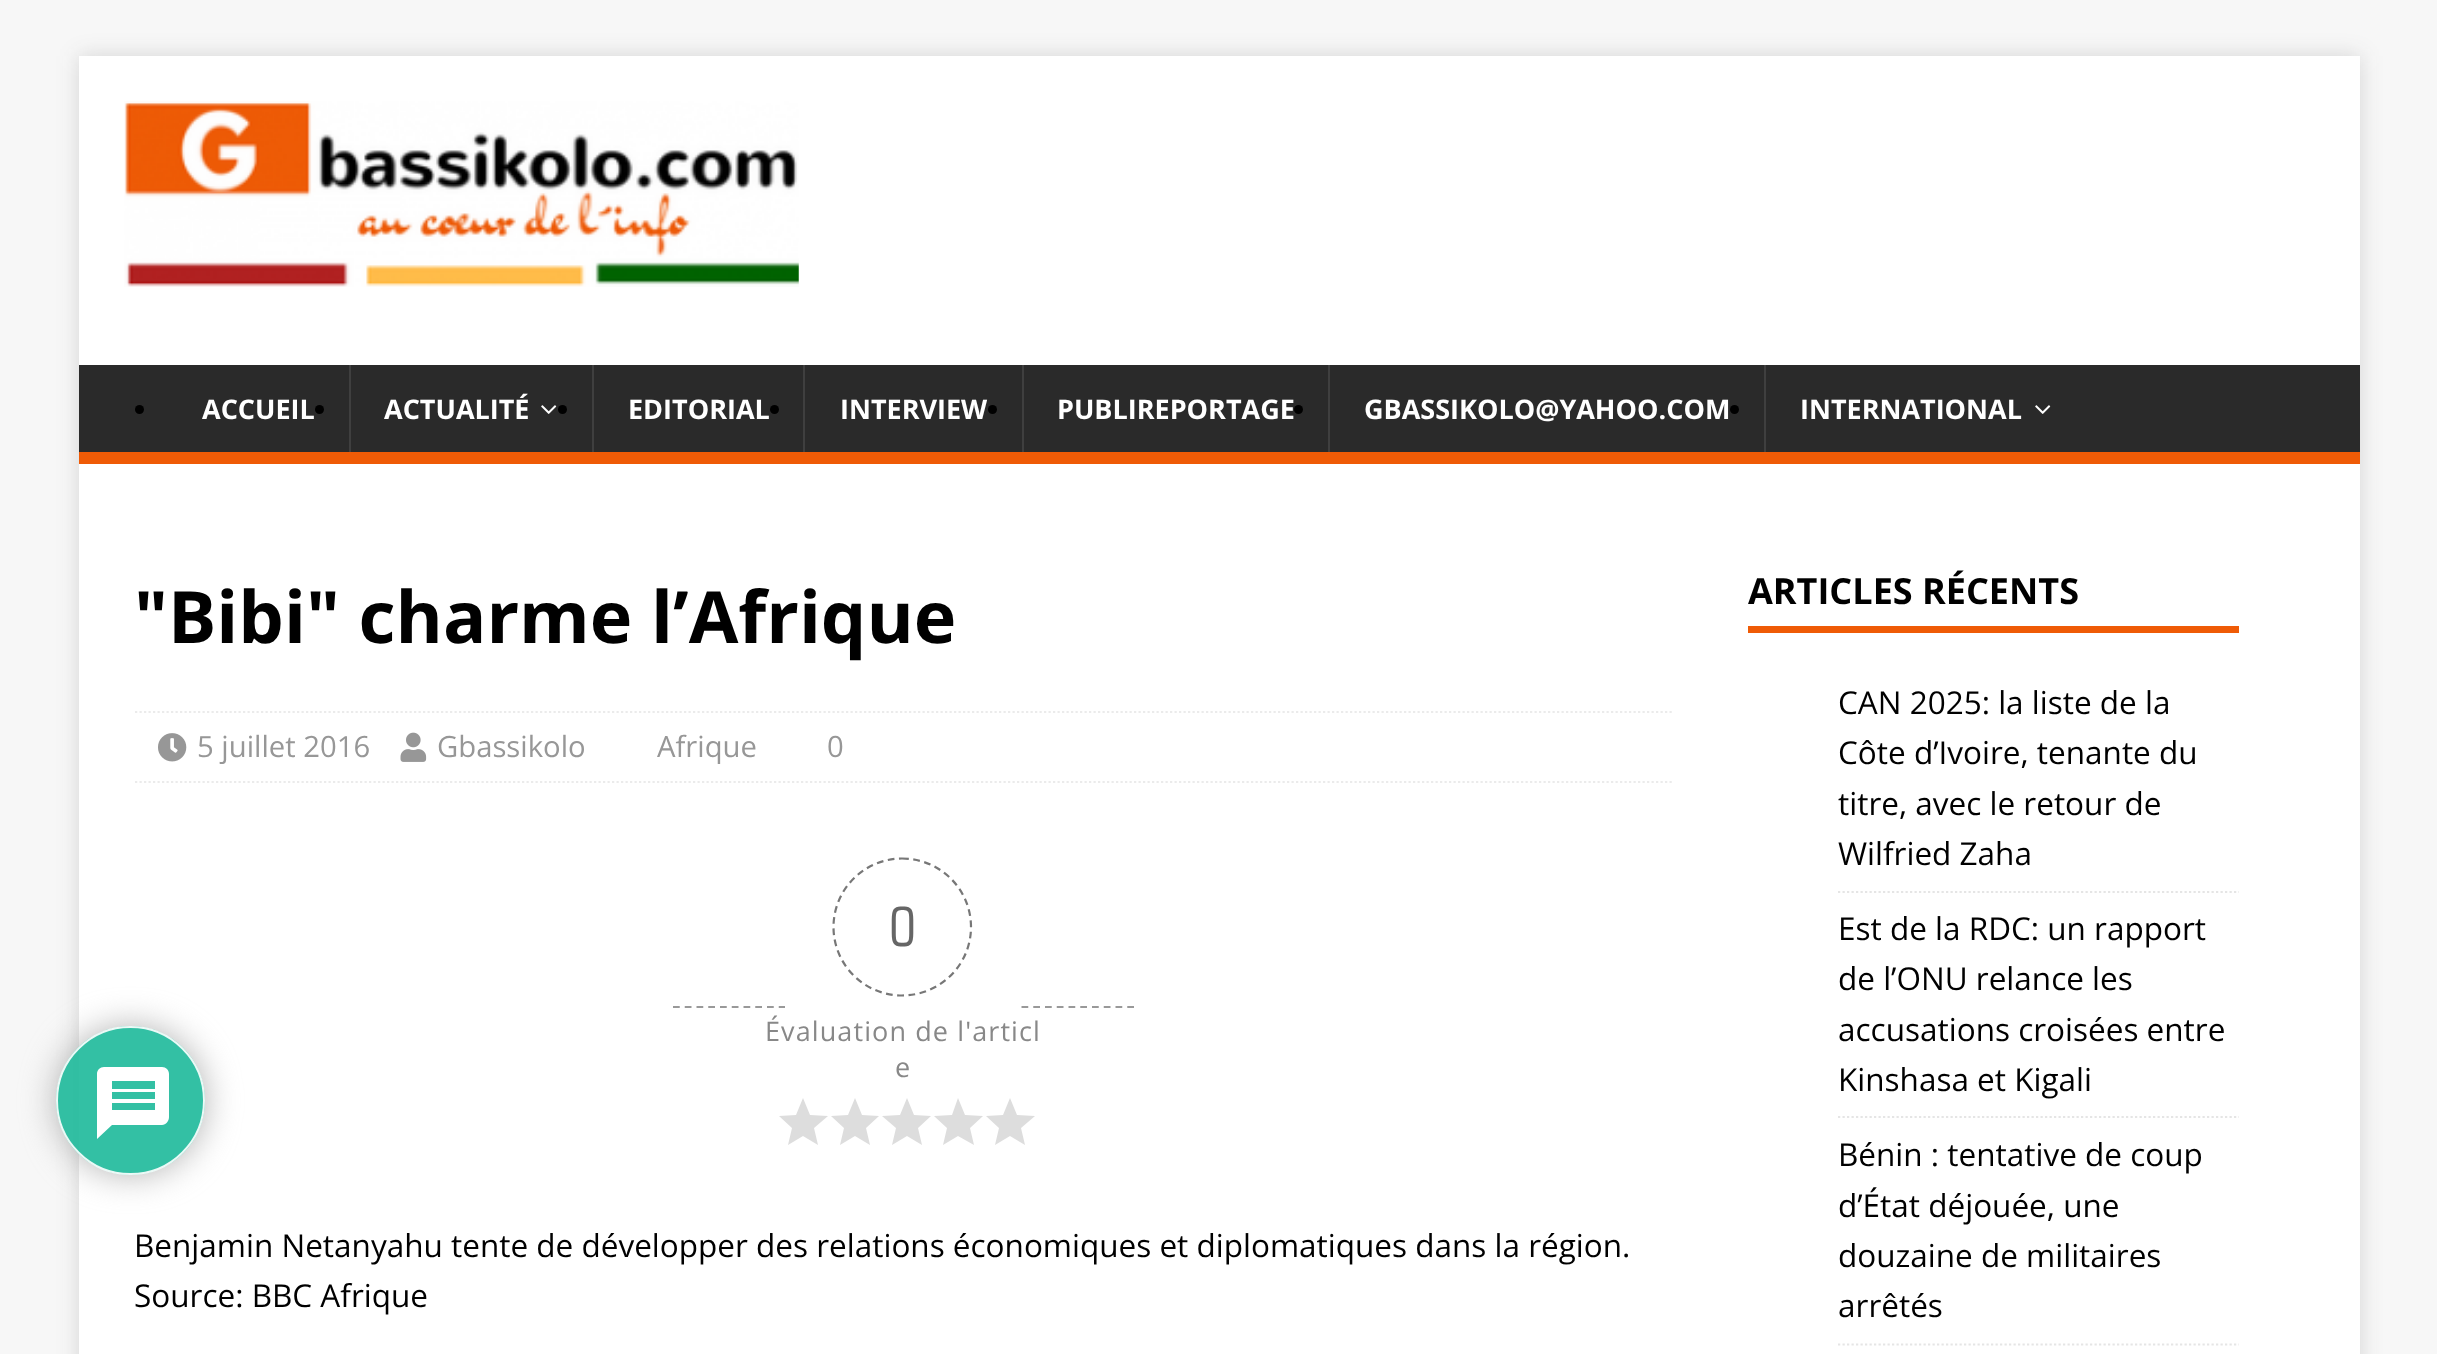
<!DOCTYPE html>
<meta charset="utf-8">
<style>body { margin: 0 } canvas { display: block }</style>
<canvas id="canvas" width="2437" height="1354"></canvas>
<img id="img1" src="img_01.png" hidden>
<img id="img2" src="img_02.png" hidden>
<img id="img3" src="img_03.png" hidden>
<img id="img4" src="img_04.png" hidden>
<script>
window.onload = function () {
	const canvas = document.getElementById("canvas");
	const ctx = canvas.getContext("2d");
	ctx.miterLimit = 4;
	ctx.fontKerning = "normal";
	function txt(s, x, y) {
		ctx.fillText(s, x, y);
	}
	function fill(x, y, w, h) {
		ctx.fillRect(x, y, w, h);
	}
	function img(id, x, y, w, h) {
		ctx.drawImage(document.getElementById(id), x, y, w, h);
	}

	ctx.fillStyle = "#F7F7F7";
	fill(0, 0, 2437, 1354);
	ctx.fillStyle = "rgba(50, 50, 50, 0.17)";
	ctx.filter = "blur(11px)";
	ctx.beginPath();
	ctx.rect(79, 56, 2281, 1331);
	ctx.fill();
	ctx.filter = "none";
	ctx.fillStyle = "#FFFFFF";
	fill(79, 464, 2281, 890);
	ctx.save();
	ctx.beginPath();
	ctx.moveTo(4, 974);
	ctx.lineTo(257, 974);
	ctx.lineTo(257, 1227);
	ctx.lineTo(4, 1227);
	ctx.closePath();
	ctx.moveTo(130.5, 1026);
	ctx.bezierCurveTo(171.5, 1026, 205, 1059.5, 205, 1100.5);
	ctx.bezierCurveTo(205, 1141.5, 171.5, 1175, 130.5, 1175);
	ctx.bezierCurveTo(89.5, 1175, 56, 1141.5, 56, 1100.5);
	ctx.bezierCurveTo(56, 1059.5, 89.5, 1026, 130.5, 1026);
	ctx.closePath();
	ctx.clip("evenodd");
	ctx.fillStyle = "rgba(170, 170, 170, 0.9)";
	ctx.filter = "blur(17px)";
	ctx.beginPath();
	ctx.roundRect(56, 1026, 149, 149, 74.5);
	ctx.fill();
	ctx.filter = "none";
	ctx.restore();
	ctx.fillStyle = "rgba(29, 185, 154, 0.9)";
	ctx.beginPath();
	ctx.arc(130.5, 1100.5, 74.5, 0, Math.PI * 2);
	ctx.fill();
	ctx.beginPath();
	ctx.arc(130.5, 1100.5, 73.5, 0, Math.PI * 2);
	ctx.strokeStyle = "rgba(255, 255, 255, 0.9)";
	ctx.lineWidth = 2;
	ctx.stroke();
	ctx.fillStyle = "#FFFFFF";
	ctx.beginPath();
	ctx.moveTo(162, 1067);
	ctx.lineTo(104, 1067);
	ctx.bezierCurveTo(100, 1067, 97, 1070, 97, 1074);
	ctx.lineTo(97, 1139);
	ctx.lineTo(112, 1125);
	ctx.lineTo(162, 1125);
	ctx.bezierCurveTo(166, 1125, 169, 1121, 169, 1117);
	ctx.lineTo(169, 1074);
	ctx.bezierCurveTo(169, 1070, 166, 1067, 162, 1067);
	ctx.closePath();
	ctx.moveTo(155, 1110);
	ctx.lineTo(112, 1110);
	ctx.lineTo(112, 1103);
	ctx.lineTo(155, 1103);
	ctx.closePath();
	ctx.moveTo(155, 1099);
	ctx.lineTo(112, 1099);
	ctx.lineTo(112, 1092);
	ctx.lineTo(155, 1092);
	ctx.closePath();
	ctx.moveTo(155, 1089);
	ctx.lineTo(112, 1089);
	ctx.lineTo(112, 1081);
	ctx.lineTo(155, 1081);
	ctx.closePath();
	ctx.fill();
	fill(79, 56, 2281, 309);
	img("img1", 124, 101, 675, 186);
	ctx.fillStyle = "#2A2A2A";
	fill(79, 365, 2281, 87);
	ctx.fillStyle = "#EF5B06";
	fill(79, 452, 2281, 12);
	ctx.fillStyle = "#000000";
	ctx.beginPath();
	ctx.arc(139.5, 409.5, 4.5, 0, Math.PI * 2);
	ctx.fill();
	ctx.beginPath();
	ctx.arc(319.5, 409.5, 4.5, 0, Math.PI * 2);
	ctx.fill();
	ctx.fillStyle = "#3F3F3F";
	fill(349, 365, 2, 87);
	img("img2", 541, 405, 16, 9);
	ctx.fillStyle = "#000000";
	ctx.beginPath();
	ctx.arc(562.5, 409.5, 4.5, 0, Math.PI * 2);
	ctx.fill();
	ctx.fillStyle = "#3F3F3F";
	fill(592, 365, 2, 87);
	ctx.fillStyle = "#000000";
	ctx.beginPath();
	ctx.arc(774.5, 409.5, 4.5, 0, Math.PI * 2);
	ctx.fill();
	ctx.fillStyle = "#3F3F3F";
	fill(803, 365, 2, 87);
	ctx.fillStyle = "#000000";
	ctx.beginPath();
	ctx.arc(992.5, 409.5, 4.5, 0, Math.PI * 2);
	ctx.fill();
	ctx.fillStyle = "#3F3F3F";
	fill(1022, 365, 2, 87);
	ctx.fillStyle = "#000000";
	ctx.beginPath();
	ctx.arc(1298.5, 409.5, 4.5, 0, Math.PI * 2);
	ctx.fill();
	ctx.fillStyle = "#3F3F3F";
	fill(1328, 365, 2, 87);
	ctx.fillStyle = "#000000";
	ctx.beginPath();
	ctx.arc(1734.5, 409.5, 4.5, 0, Math.PI * 2);
	ctx.fill();
	ctx.fillStyle = "#3F3F3F";
	fill(1764, 365, 2, 87);
	img("img2", 2035, 405, 16, 9);
	ctx.beginPath();
	ctx.moveTo(135, 712);
	ctx.lineTo(1672, 712);
	ctx.strokeStyle = "#EBEBEB";
	ctx.lineWidth = 2.2;
	ctx.setLineDash([2.25, 2.25]);
	ctx.stroke();
	ctx.beginPath();
	ctx.moveTo(135, 782);
	ctx.lineTo(1672, 782);
	ctx.stroke();
	img("img3", 158, 733, 29, 29);
	img("img4", 400, 732, 27, 30);
	ctx.beginPath();
	ctx.moveTo(673, 1007);
	ctx.lineTo(785, 1007);
	ctx.strokeStyle = "#999999";
	ctx.setLineDash([6.75, 5]);
	ctx.stroke();
	ctx.beginPath();
	ctx.moveTo(902, 858.5);
	ctx.bezierCurveTo(940, 858.5, 971, 889, 971, 927);
	ctx.bezierCurveTo(971, 965, 940, 995.5, 902, 995.5);
	ctx.bezierCurveTo(864.5, 995.5, 833.5, 965, 833.5, 927);
	ctx.bezierCurveTo(833.5, 889, 864.5, 858.5, 902, 858.5);
	ctx.closePath();
	ctx.strokeStyle = "#777777";
	ctx.setLineDash([6.75, 4.5]);
	ctx.stroke();
	ctx.fillStyle = "#DDDDDD";
	ctx.beginPath();
	ctx.moveTo(803, 1136);
	ctx.lineTo(818, 1145);
	ctx.lineTo(814, 1128);
	ctx.lineTo(828, 1116);
	ctx.lineTo(810, 1115);
	ctx.lineTo(803, 1098);
	ctx.lineTo(796, 1115);
	ctx.lineTo(779, 1116);
	ctx.lineTo(792, 1128);
	ctx.lineTo(788, 1145);
	ctx.closePath();
	ctx.fill();
	ctx.beginPath();
	ctx.moveTo(855, 1136);
	ctx.lineTo(870, 1145);
	ctx.lineTo(866, 1128);
	ctx.lineTo(879, 1116);
	ctx.lineTo(862, 1115);
	ctx.lineTo(855, 1098);
	ctx.lineTo(848, 1115);
	ctx.lineTo(831, 1116);
	ctx.lineTo(844, 1128);
	ctx.lineTo(840, 1145);
	ctx.closePath();
	ctx.fill();
	ctx.beginPath();
	ctx.moveTo(907, 1136);
	ctx.lineTo(922, 1145);
	ctx.lineTo(918, 1128);
	ctx.lineTo(931, 1116);
	ctx.lineTo(914, 1115);
	ctx.lineTo(907, 1098);
	ctx.lineTo(900, 1115);
	ctx.lineTo(882, 1116);
	ctx.lineTo(896, 1128);
	ctx.lineTo(892, 1145);
	ctx.closePath();
	ctx.fill();
	ctx.beginPath();
	ctx.moveTo(958, 1136);
	ctx.lineTo(974, 1145);
	ctx.lineTo(970, 1128);
	ctx.lineTo(983, 1116);
	ctx.lineTo(965, 1115);
	ctx.lineTo(958, 1098);
	ctx.lineTo(952, 1115);
	ctx.lineTo(934, 1116);
	ctx.lineTo(947, 1128);
	ctx.lineTo(943, 1145);
	ctx.closePath();
	ctx.fill();
	ctx.beginPath();
	ctx.moveTo(1010, 1136);
	ctx.lineTo(1025, 1145);
	ctx.lineTo(1021, 1128);
	ctx.lineTo(1035, 1116);
	ctx.lineTo(1017, 1115);
	ctx.lineTo(1010, 1098);
	ctx.lineTo(1003, 1115);
	ctx.lineTo(986, 1116);
	ctx.lineTo(999, 1128);
	ctx.lineTo(995, 1145);
	ctx.closePath();
	ctx.fill();
	ctx.beginPath();
	ctx.moveTo(1021.5, 1007);
	ctx.lineTo(1134, 1007);
	ctx.strokeStyle = "#999999";
	ctx.setLineDash([6.75, 5]);
	ctx.stroke();
	ctx.fillStyle = "#EF5B06";
	fill(1748, 626, 491, 7);
	ctx.beginPath();
	ctx.moveTo(1838, 892);
	ctx.lineTo(2239, 892);
	ctx.strokeStyle = "#E5E5E5";
	ctx.setLineDash([2.25, 2.25]);
	ctx.stroke();
	ctx.beginPath();
	ctx.moveTo(1838, 1117);
	ctx.lineTo(2239, 1117);
	ctx.stroke();
	ctx.beginPath();
	ctx.moveTo(1838, 1344.5);
	ctx.lineTo(2239, 1344.5);
	ctx.stroke();
	ctx.font = "bold 27px Open Sans";
	ctx.fillStyle = "#FFFFFF";
	txt("ACCUEIL", 202, 419);
	txt("ACTUALITÉ", 384, 419);
	txt("EDITORIAL", 628, 419);
	txt("INTERVIEW", 840, 419);
	txt("PUBLIREPORTAGE", 1057, 419);
	txt("GBASSIKOLO@YAHOO.COM", 1364, 419);
	txt("INTERNATIONAL", 1800, 419);
	ctx.font = "bold 72px Open Sans";
	ctx.fillStyle = "#000000";
	txt("\"Bibi\" charme l’Afrique", 134, 643);
	ctx.font = "29.25px Open Sans";
	ctx.fillStyle = "#979797";
	txt("5 juillet 2016", 197, 757);
	txt("Gbassikolo", 437, 757);
	txt("Afrique", 657, 757);
	txt("0", 827, 757);
	ctx.font = "54px 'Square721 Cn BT'";
	ctx.fillStyle = "#666666";
	txt("0", 889, 946);
	ctx.letterSpacing = "1.1px";
	ctx.font = "27px Open Sans";
	ctx.fillStyle = "#888888";
	txt("Évaluation de l'articl", 765, 1041);
	txt("e", 895, 1077);
	ctx.letterSpacing = "0px";
	ctx.font = "31.5px Open Sans";
	ctx.fillStyle = "#000000";
	txt("Benjamin Netanyahu tente de développer des relations économiques et diplomatiques dans la région.", 134, 1257);
	txt("Source: BBC Afrique", 134, 1307);
	ctx.font = "bold 36px Open Sans";
	txt("ARTICLES RÉCENTS", 1748, 604);
	ctx.font = "31.5px Open Sans";
	txt("CAN 2025: la liste de la", 1838, 714);
	txt("Côte d’Ivoire, tenante du", 1838, 764);
	txt("titre, avec le retour de", 1838, 815);
	txt("Wilfried Zaha", 1838, 865);
	txt("Est de la RDC: un rapport", 1838, 940);
	txt("de l’ONU relance les", 1838, 990);
	txt("accusations croisées entre", 1838, 1041);
	txt("Kinshasa et Kigali", 1838, 1091);
	txt("Bénin : tentative de coup", 1838, 1166);
	txt("d’État déjouée, une", 1838, 1217);
	txt("douzaine de militaires", 1838, 1267);
	txt("arrêtés", 1838, 1317);
};
</script>
